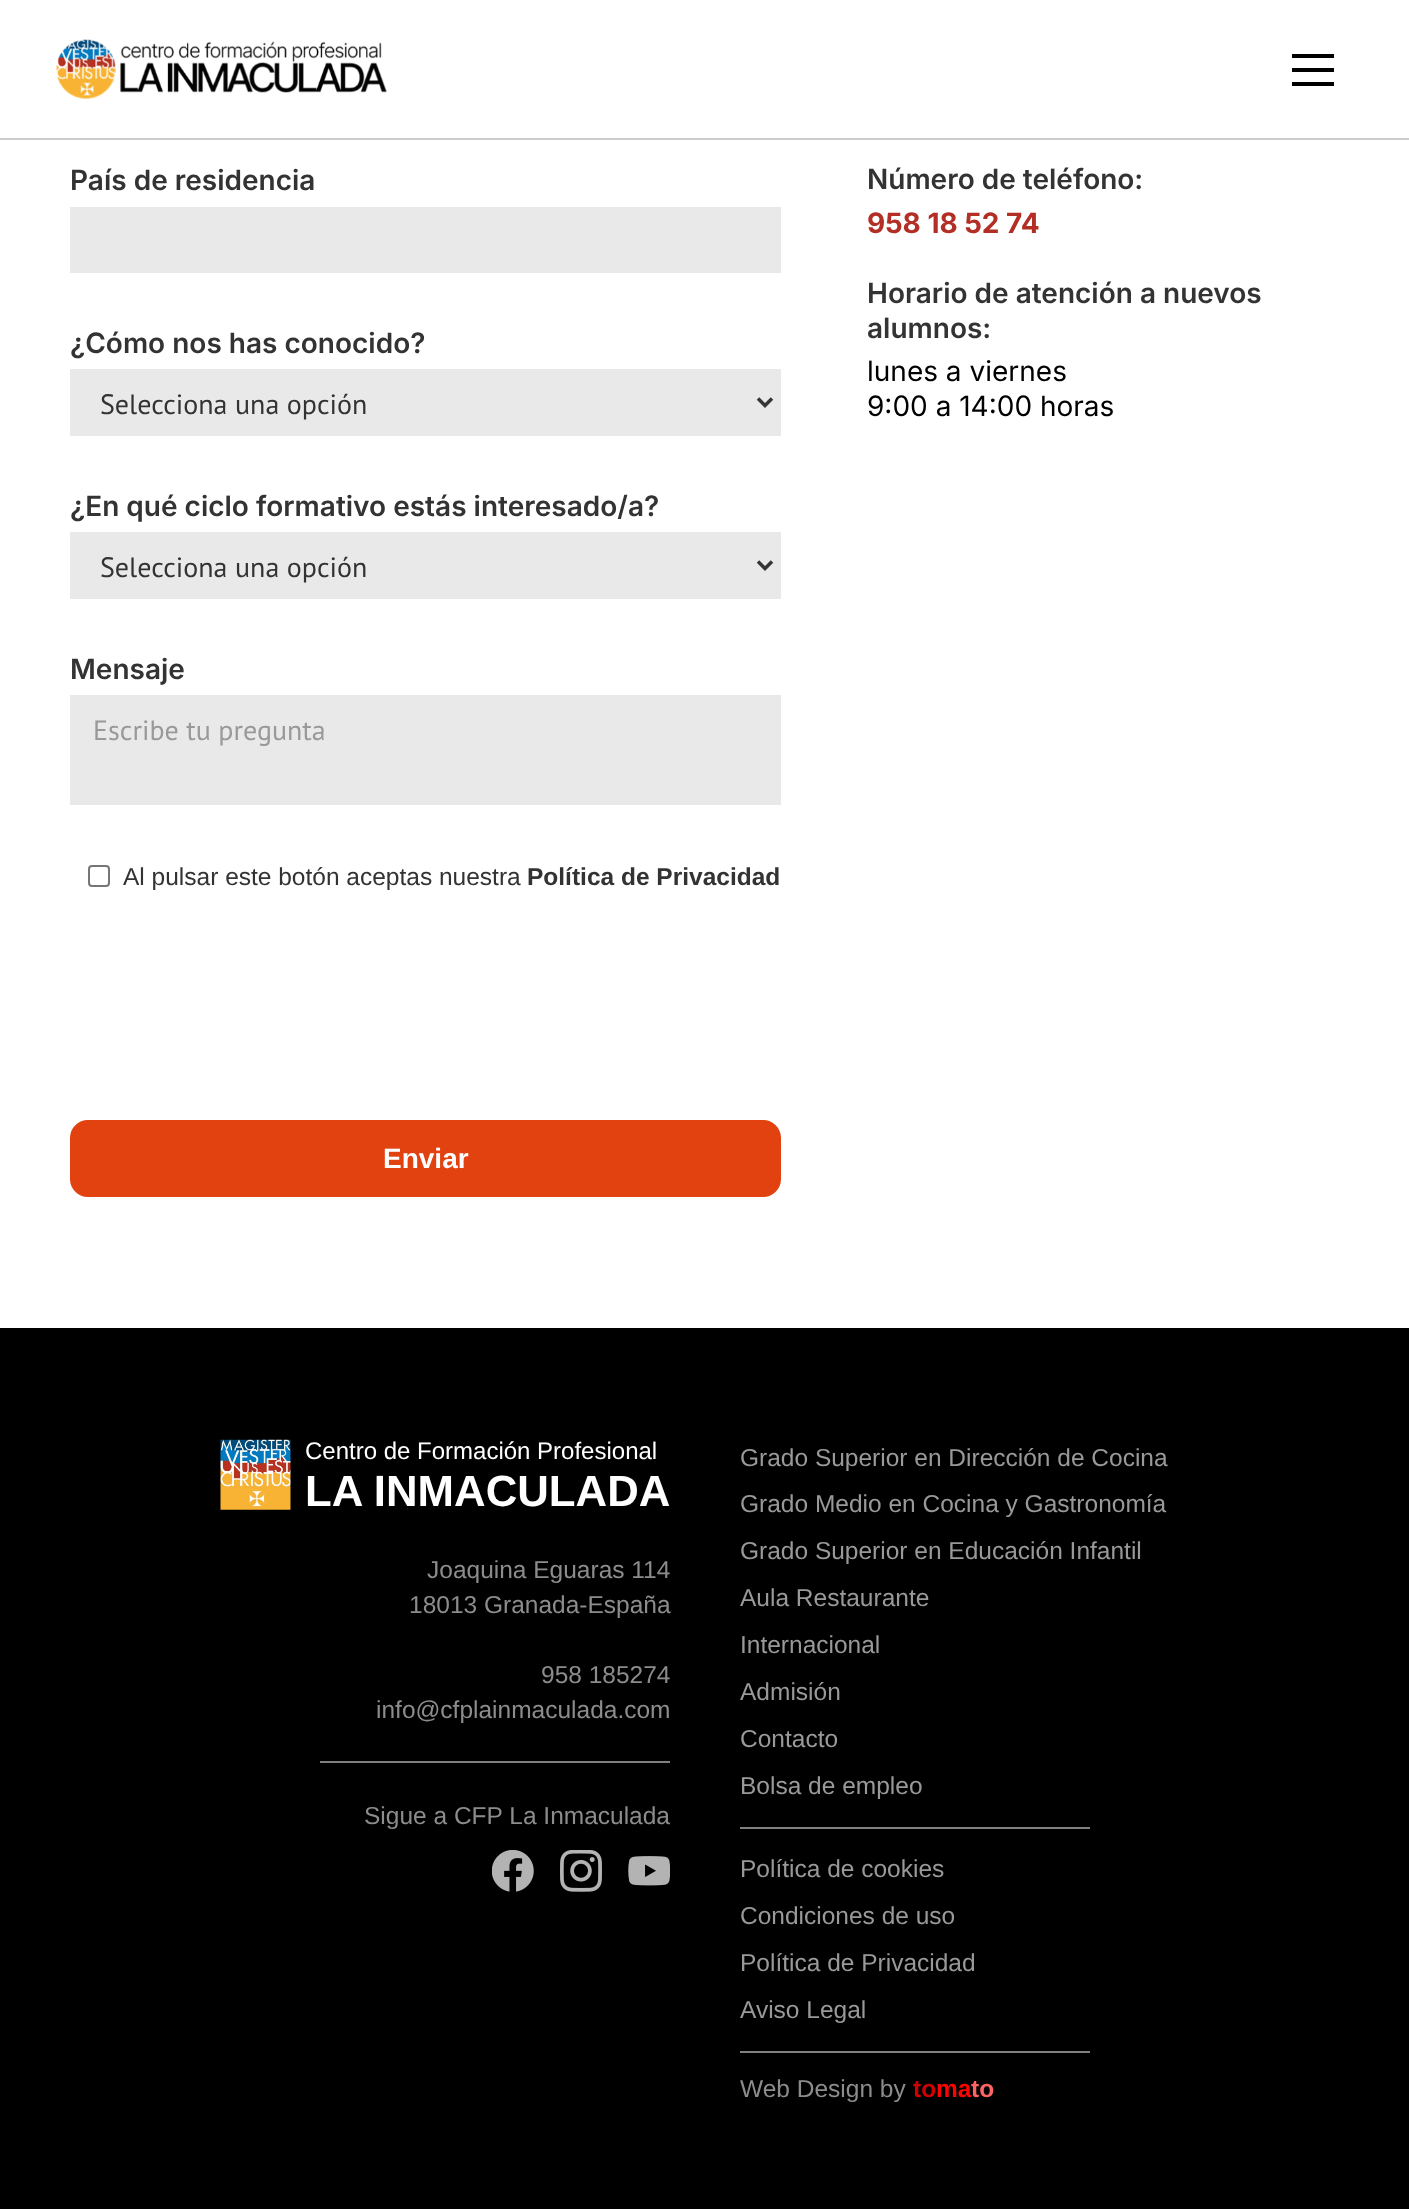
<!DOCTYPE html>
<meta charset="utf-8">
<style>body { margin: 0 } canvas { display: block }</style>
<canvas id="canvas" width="1409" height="2209"></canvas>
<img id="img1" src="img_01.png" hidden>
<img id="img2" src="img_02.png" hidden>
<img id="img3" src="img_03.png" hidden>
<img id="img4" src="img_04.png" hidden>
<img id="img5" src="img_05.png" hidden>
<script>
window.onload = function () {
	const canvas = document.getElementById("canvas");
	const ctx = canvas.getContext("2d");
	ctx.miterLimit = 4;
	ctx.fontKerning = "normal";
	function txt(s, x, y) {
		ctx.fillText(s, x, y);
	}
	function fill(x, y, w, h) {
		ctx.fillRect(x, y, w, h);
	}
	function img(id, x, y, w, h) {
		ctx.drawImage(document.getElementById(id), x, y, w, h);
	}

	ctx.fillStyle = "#FFFFFF";
	fill(0, 0, 1409, 2209);
	ctx.fillStyle = "#CCCCCC";
	fill(0, 138, 1409, 2);
	img("img1", 56, 39, 331, 61);
	ctx.fillStyle = "#000000";
	fill(1292, 54, 42, 4);
	fill(1292, 68, 42, 4);
	fill(1292, 82, 42, 4);
	ctx.fillStyle = "#E9E9E9";
	fill(70, 207, 711, 66);
	fill(70, 369, 711, 67);
	ctx.beginPath();
	ctx.moveTo(758, 398.5);
	ctx.lineTo(765, 405.5);
	ctx.lineTo(772, 398.5);
	ctx.strokeStyle = "#353535";
	ctx.lineWidth = 3.5;
	ctx.stroke();
	fill(70, 532, 711, 67);
	ctx.beginPath();
	ctx.moveTo(758, 561.5);
	ctx.lineTo(765, 568.5);
	ctx.lineTo(772, 561.5);
	ctx.stroke();
	fill(70, 695, 711, 110);
	ctx.beginPath();
	ctx.roundRect(89, 866, 20, 20, 3);
	ctx.strokeStyle = "#767676";
	ctx.lineWidth = 2;
	ctx.stroke();
	ctx.fillStyle = "#E24110";
	ctx.beginPath();
	ctx.roundRect(72, 1122, 707, 73, 16);
	ctx.fill();
	ctx.strokeStyle = "#E24110";
	ctx.lineWidth = 4;
	ctx.stroke();
	ctx.fillStyle = "#000000";
	fill(0, 1328, 1409, 881);
	img("img2", 220, 1439, 71, 71);
	ctx.fillStyle = "#808080";
	fill(320, 1761, 350, 2);
	img("img3", 492, 1850, 42, 42);
	img("img4", 560, 1850, 42, 42);
	img("img5", 628, 1856, 42, 30);
	fill(740, 1827, 350, 2);
	fill(740, 2051, 350, 2);
	ctx.font = "600 28px Inter";
	ctx.fillStyle = "#333333";
	txt("País de residencia", 70, 190);
	txt("¿Cómo nos has conocido?", 70, 353);
	ctx.font = "28px PT Sans";
	txt("Selecciona una opción", 100, 414);
	ctx.font = "600 28px Inter";
	txt("¿En qué ciclo formativo estás interesado/a?", 70, 516);
	ctx.font = "28px PT Sans";
	txt("Selecciona una opción", 100, 577);
	ctx.font = "600 28px Inter";
	txt("Mensaje", 70, 679);
	ctx.font = "28px PT Sans";
	ctx.fillStyle = "#999999";
	txt("Escribe tu pregunta", 93, 740);
	ctx.font = "24.5px Liberation Sans";
	ctx.fillStyle = "#333333";
	txt("Al pulsar este botón aceptas nuestra", 123, 885);
	ctx.font = "bold 24.5px Liberation Sans";
	txt("Política de Privacidad", 527, 885);
	ctx.font = "bold 28px Liberation Sans";
	ctx.fillStyle = "#FFFFFF";
	txt("Enviar", 383, 1168);
	ctx.font = "600 28px Inter";
	ctx.fillStyle = "#333333";
	txt("Número de teléfono:", 867, 189);
	ctx.font = "bold 28px Inter";
	ctx.fillStyle = "#B32F25";
	txt("958 18 52 74", 867, 233);
	ctx.font = "600 28px Inter";
	ctx.fillStyle = "#333333";
	txt("Horario de atención a nuevos", 867, 303);
	txt("alumnos:", 867, 338);
	ctx.font = "28px Inter";
	ctx.fillStyle = "#000000";
	txt("lunes a viernes", 867, 381);
	txt("9:00 a 14:00 horas", 867, 416);
	ctx.font = "24px Liberation Sans";
	ctx.fillStyle = "#FFFFFF";
	txt("Centro de Formación Profesional", 305, 1459);
	ctx.font = "bold 43.75px Liberation Sans";
	txt("LA INMACULADA", 305, 1506);
	ctx.font = "24.5px Liberation Sans";
	ctx.fillStyle = "#8D8C8C";
	txt("Joaquina Eguaras 114", 427, 1578);
	txt("18013 Granada-España", 409, 1613);
	txt("958 185274", 541, 1683);
	txt("info@cfplainmaculada.com", 376, 1718);
	txt("Sigue a CFP La Inmaculada", 364, 1824);
	ctx.fillStyle = "#999999";
	txt("Grado Superior en Dirección de Cocina", 740, 1466);
	txt("Grado Medio en Cocina y Gastronomía", 740, 1512);
	txt("Grado Superior en Educación Infantil", 740, 1559);
	txt("Aula Restaurante", 740, 1606);
	txt("Internacional", 740, 1653);
	txt("Admisión", 740, 1700);
	txt("Contacto", 740, 1747);
	txt("Bolsa de empleo", 740, 1794);
	txt("Política de cookies", 740, 1877);
	txt("Condiciones de uso", 740, 1924);
	txt("Política de Privacidad", 740, 1971);
	txt("Aviso Legal", 740, 2018);
	ctx.fillStyle = "#8D8C8C";
	txt("Web Design by", 740, 2097);
	ctx.font = "bold 24.5px Liberation Sans";
	ctx.fillStyle = "#CF0000";
	txt("to", 913, 2097);
	ctx.fillStyle = "#FF0303";
	txt("ma", 936, 2097);
	ctx.fillStyle = "#FF6464";
	txt("to", 971, 2097);
};
</script>
